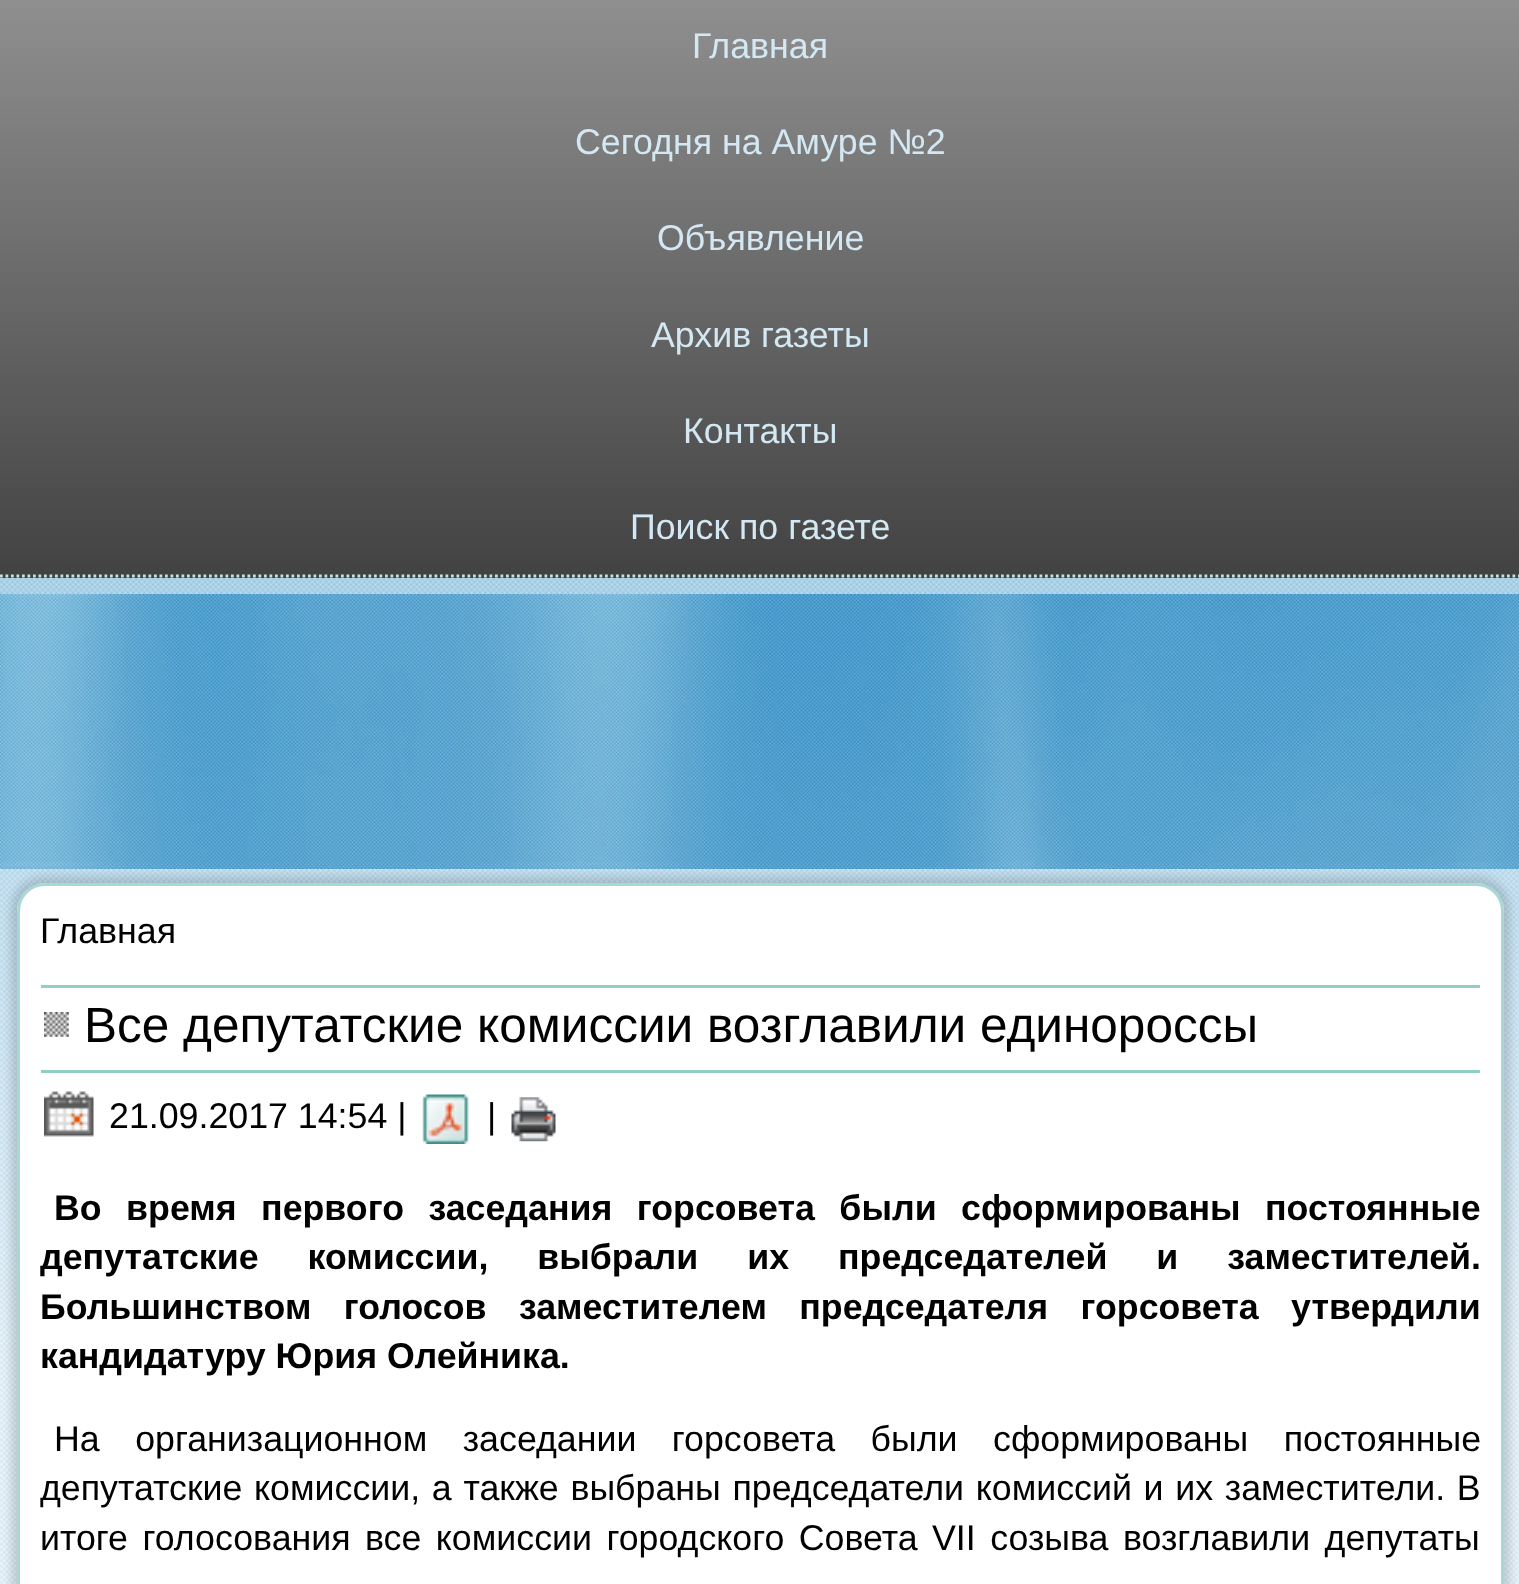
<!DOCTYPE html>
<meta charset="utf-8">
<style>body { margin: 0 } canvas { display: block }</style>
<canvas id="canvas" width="1519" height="1584"></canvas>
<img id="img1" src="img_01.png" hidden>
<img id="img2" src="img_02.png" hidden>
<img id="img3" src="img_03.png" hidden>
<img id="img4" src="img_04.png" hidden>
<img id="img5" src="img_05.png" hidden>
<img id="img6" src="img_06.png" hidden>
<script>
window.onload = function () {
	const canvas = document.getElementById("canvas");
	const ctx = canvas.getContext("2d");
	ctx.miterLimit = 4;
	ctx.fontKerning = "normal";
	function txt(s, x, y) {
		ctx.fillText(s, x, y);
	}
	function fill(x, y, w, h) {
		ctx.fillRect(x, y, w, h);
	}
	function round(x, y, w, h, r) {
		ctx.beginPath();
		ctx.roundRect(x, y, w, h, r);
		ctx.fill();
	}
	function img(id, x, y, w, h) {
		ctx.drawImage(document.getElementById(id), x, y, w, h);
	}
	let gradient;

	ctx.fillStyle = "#FFFFFF";
	fill(0, 0, 1519, 1584);
	img("img1", 0, 578, 1519, 1006);
	gradient = ctx.createLinearGradient(760, 0, 760, 578);
	gradient.addColorStop(0, "#8F8F8F");
	gradient.addColorStop(0.2, "#808080");
	gradient.addColorStop(1, "#424242");
	ctx.fillStyle = gradient;
	fill(0, 0, 1519, 578);
	ctx.beginPath();
	ctx.moveTo(0, 576);
	ctx.lineTo(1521, 576);
	ctx.strokeStyle = "#C3E4E0";
	ctx.lineWidth = 2.8;
	ctx.setLineDash([2.75, 2.75]);
	ctx.stroke();
	img("img2", 0, 594, 1519, 275);
	ctx.fillStyle = "rgba(0, 0, 0, 0.15)";
	ctx.filter = "blur(4px)";
	ctx.beginPath();
	ctx.roundRect(11, 877, 1499, 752, 33);
	ctx.fill();
	ctx.filter = "none";
	ctx.fillStyle = "#FFFFFF";
	round(17, 883, 1487, 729, 28);
	ctx.beginPath();
	ctx.roundRect(18.5, 884.5, 1484, 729, 26.5);
	ctx.strokeStyle = "rgba(146, 206, 199, 0.8)";
	ctx.lineWidth = 3;
	ctx.setLineDash([]);
	ctx.stroke();
	ctx.fillStyle = "#92CEC7";
	fill(41, 985, 1439, 3);
	fill(41, 1070, 1439, 3);
	img("img3", 44, 1012, 25, 25);
	img("img4", 44, 1091, 50, 46);
	img("img5", 422, 1094, 47, 50);
	img("img6", 511, 1097, 45, 45);
	ctx.font = "35.75px Liberation Sans";
	ctx.fillStyle = "#D3E8F3";
	txt("Главная", 692, 58);
	txt("Сегодня на Амуре №2", 575, 154);
	txt("Объявление", 657, 250);
	txt("Архив газеты", 651, 347);
	txt("Контакты", 683, 443);
	txt("Поиск по газете", 630, 539);
	ctx.fillStyle = "#000000";
	txt("Главная", 40, 943);
	ctx.font = "49.5px Liberation Sans";
	txt("Все депутатские комиссии возглавили единороссы", 84, 1042);
	ctx.font = "35.75px Liberation Sans";
	txt("21.09.2017 14:54 |", 109, 1128);
	txt("|", 487, 1128);
	ctx.wordSpacing = "14.5px";
	ctx.font = "bold 35.75px Liberation Sans";
	txt("Во время первого заседания горсовета были сформированы постоянные", 54, 1220);
	ctx.wordSpacing = "39px";
	txt("депутатские комиссии, выбрали их председателей и заместителей.", 40, 1269);
	ctx.wordSpacing = "22.5px";
	txt("Большинством голосов заместителем председателя горсовета утвердили", 40, 1319);
	ctx.wordSpacing = "0px";
	txt("кандидатуру Юрия Олейника.", 40, 1368);
	ctx.wordSpacing = "25.5px";
	ctx.font = "35.75px Liberation Sans";
	txt("На организационном заседании горсовета были сформированы постоянные", 54, 1451);
	ctx.wordSpacing = "1.75px";
	txt("депутатские комиссии, а также выбраны председатели комиссий и их заместители. В", 40, 1500);
	ctx.wordSpacing = "4.5px";
	txt("итоге голосования все комиссии городского Совета VII созыва возглавили депутаты", 40, 1550);
};
</script>
